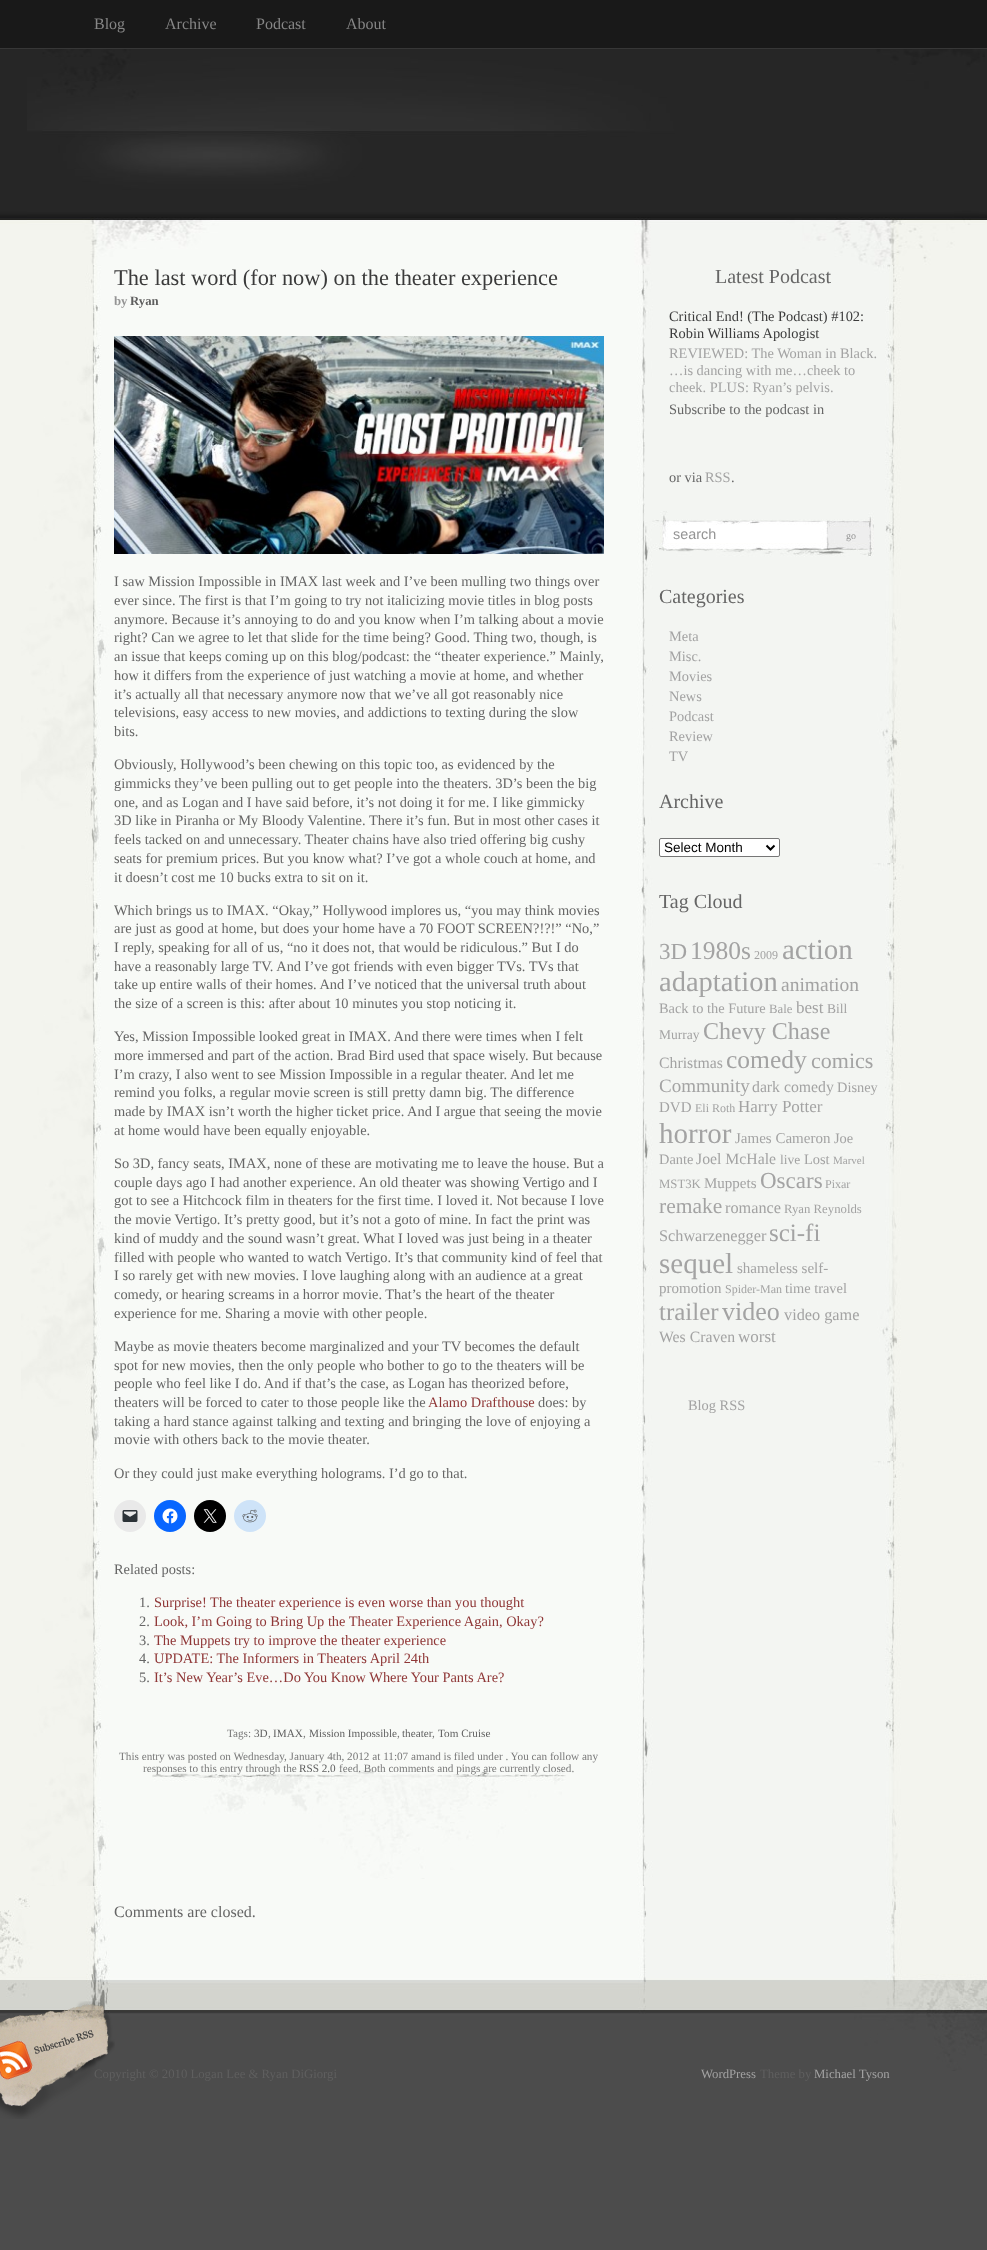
<!DOCTYPE html>
<meta charset="utf-8">
<style>body { margin: 0 } canvas { display: block }</style>
<canvas id="canvas" width="987" height="2250"></canvas>
<img id="img1" src="img_01.png" hidden>
<img id="img2" src="img_02.png" hidden>
<img id="img3" src="img_03.png" hidden>
<img id="img4" src="img_04.png" hidden>
<img id="img5" src="img_05.png" hidden>
<img id="img6" src="img_06.png" hidden>
<img id="img7" src="img_07.png" hidden>
<img id="img8" src="img_08.png" hidden>
<img id="img9" src="img_09.png" hidden>
<img id="img10" src="img_10.png" hidden>
<img id="img11" src="img_11.png" hidden>
<img id="img12" src="img_12.png" hidden>
<script>
window.onload = function () {
	const canvas = document.getElementById("canvas");
	const ctx = canvas.getContext("2d");
	ctx.miterLimit = 4;
	ctx.fontKerning = "normal";
	function txt(s, x, y) {
		ctx.fillText(s, x, y);
	}
	function fill(x, y, w, h) {
		ctx.fillRect(x, y, w, h);
	}
	function img(id, x, y, w, h) {
		ctx.drawImage(document.getElementById(id), x, y, w, h);
	}

	ctx.fillStyle = "#4C4C4C";
	fill(0, 0, 987, 2250);
	ctx.fillStyle = "#191919";
	fill(0, 0, 987, 48);
	ctx.fillStyle = "#373737";
	fill(0, 48, 987, 1);
	img("img1", 0, 49, 987, 216);
	img("img2", 27, 49, 958, 216);
	ctx.fillStyle = "#F3F4EE";
	fill(0, 265, 987, 1621);
	img("img3", 21, 265, 883, 1621);
	img("img4", 114, 336, 490, 218);
	ctx.fillStyle = "#E9E9E9";
	ctx.beginPath();
	ctx.arc(130, 1516, 16, 0, Math.PI * 2);
	ctx.fill();
	img("img5", 122, 1510, 16, 12);
	ctx.fillStyle = "#0866FF";
	ctx.beginPath();
	ctx.arc(170, 1516, 16, 0, Math.PI * 2);
	ctx.fill();
	img("img6", 162, 1508, 16, 16);
	ctx.fillStyle = "#000000";
	ctx.beginPath();
	ctx.arc(210, 1516, 16, 0, Math.PI * 2);
	ctx.fill();
	img("img7", 203, 1509, 14, 14);
	ctx.fillStyle = "#CEE3F8";
	ctx.beginPath();
	ctx.arc(250, 1516, 16, 0, Math.PI * 2);
	ctx.fill();
	img("img8", 242, 1509, 16, 14);
	img("img9", 152, 1766, 414, 113);
	img("img10", 652, 511, 222, 46);
	ctx.fillStyle = "#FFFFFF";
	fill(671, 525, 152, 2);
	ctx.beginPath();
	ctx.roundRect(659.5, 838.5, 120, 18, 1.5);
	ctx.fill();
	ctx.strokeStyle = "#767676";
	ctx.stroke();
	ctx.beginPath();
	ctx.moveTo(766.5, 845.5);
	ctx.lineTo(770.5, 849.5);
	ctx.lineTo(774.5, 845.5);
	ctx.strokeStyle = "#000000";
	ctx.lineWidth = 2;
	ctx.stroke();
	img("img11", 0, 1886, 987, 185);
	ctx.font = "16px Liberation Serif";
	ctx.fillStyle = "#868686";
	txt("Blog", 94, 29);
	txt("Archive", 165, 29);
	txt("Podcast", 256, 29);
	txt("About", 346, 29);
	ctx.font = "22.4px Liberation Serif";
	ctx.fillStyle = "#3B3B3B";
	txt("The last word (for now) on the theater experience", 114, 285);
	ctx.font = "bold 12.75px Liberation Serif";
	ctx.fillStyle = "#949494";
	txt("by", 114, 305);
	ctx.fillStyle = "#5F5F5F";
	txt("Ryan", 130, 305);
	ctx.font = "14.4px Liberation Serif";
	ctx.fillStyle = "#666666";
	txt("I saw Mission Impossible in IMAX last week and I’ve been mulling two things over", 114, 586);
	txt("ever since. The first is that I’m going to try not italicizing movie titles in blog posts", 114, 605);
	txt("anymore. Because it’s annoying to do and you know when I’m talking about a movie", 114, 624);
	txt("right? Can we agree to let that slide for the time being? Good. Thing two, though, is", 114, 642);
	txt("an issue that keeps coming up on this blog/podcast: the “theater experience.” Mainly,", 114, 661);
	txt("how it differs from the experience of just watching a movie at home, and whether", 114, 680);
	txt("it’s actually all that necessary anymore now that we’ve all got reasonably nice", 114, 699);
	txt("televisions, easy access to new movies, and addictions to texting during the slow", 114, 717);
	txt("bits.", 114, 736);
	txt("Obviously, Hollywood’s been chewing on this topic too, as evidenced by the", 114, 769);
	txt("gimmicks they’ve been pulling out to get people into the theaters. 3D’s been the big", 114, 788);
	txt("one, and as Logan and I have said before, it’s not doing it for me. I like gimmicky", 114, 807);
	txt("3D like in Piranha or My Bloody Valentine. There it’s fun. But in most other cases it", 114, 825);
	txt("feels tacked on and unnecessary. Theater chains have also tried offering big cushy", 114, 844);
	txt("seats for premium prices. But you know what? I’ve got a whole couch at home, and", 114, 863);
	txt("it doesn’t cost me 10 bucks extra to sit on it.", 114, 882);
	txt("Which brings us to IMAX. “Okay,” Hollywood implores us, “you may think movies", 114, 915);
	txt("are just as good at home, but does your home have a 70 FOOT SCREEN?!?!” “No,”", 114, 933);
	txt("I reply, speaking for all of us, “no it does not, that would be ridiculous.” But I do", 114, 952);
	txt("have a reasonably large TV. And I’ve got friends with even bigger TVs. TVs that", 114, 971);
	txt("take up entire walls of their homes. And I’ve noticed that the universal truth about", 114, 989);
	txt("the size of a screen is this: after about 10 minutes you stop noticing it.", 114, 1008);
	txt("Yes, Mission Impossible looked great in IMAX. And there were times when I felt", 114, 1041);
	txt("more immersed and part of the action. Brad Bird used that space wisely. But because", 114, 1060);
	txt("I’m crazy, I also went to see Mission Impossible in a regular theater. And let me", 114, 1079);
	txt("remind you folks, a regular movie screen is still pretty damn big. The difference", 114, 1097);
	txt("made by IMAX isn’t worth the higher ticket price. And I argue that seeing the movie", 114, 1116);
	txt("at home would have been equally enjoyable.", 114, 1135);
	txt("So 3D, fancy seats, IMAX, none of these are motivating me to leave the house. But a", 114, 1168);
	txt("couple days ago I had another experience. An old theater was showing Vertigo and I", 114, 1187);
	txt("got to see a Hitchcock film in theaters for the first time. I loved it. Not because I love", 114, 1205);
	txt("the movie Vertigo. It’s pretty good, but it’s not a goto of mine. In fact the print was", 114, 1224);
	txt("kind of muddy and the sound wasn’t great. What I loved was just being in a theater", 114, 1243);
	txt("filled with people who wanted to watch Vertigo. It’s that community kind of feel that", 114, 1262);
	txt("I so rarely get with new movies. I love laughing along with an audience at a great", 114, 1280);
	txt("comedy, or hearing screams in a horror movie. That’s the heart of the theater", 114, 1299);
	txt("experience for me. Sharing a movie with other people.", 114, 1318);
	txt("Maybe as movie theaters become marginalized and your TV becomes the default", 114, 1351);
	txt("spot for new movies, then the only people who bother to go to the theaters will be", 114, 1370);
	txt("people who feel like I do. And if that’s the case, as Logan has theorized before,", 114, 1388);
	txt("theaters will be forced to cater to those people like the", 114, 1407);
	ctx.fillStyle = "#8F3737";
	txt("Alamo Drafthouse", 428, 1407);
	ctx.fillStyle = "#666666";
	txt("does: by", 538, 1407);
	txt("taking a hard stance against talking and texting and bringing the love of enjoying a", 114, 1426);
	txt("movie with others back to the movie theater.", 114, 1444);
	txt("Or they could just make everything holograms. I’d go to that.", 114, 1478);
	txt("Related posts:", 114, 1574);
	txt("1.", 139, 1607);
	ctx.fillStyle = "#8F3737";
	txt("Surprise! The theater experience is even worse than you thought", 154, 1607);
	ctx.fillStyle = "#666666";
	txt("2.", 139, 1626);
	ctx.fillStyle = "#8F3737";
	txt("Look, I’m Going to Bring Up the Theater Experience Again, Okay?", 154, 1626);
	ctx.fillStyle = "#666666";
	txt("3.", 139, 1645);
	ctx.fillStyle = "#8F3737";
	txt("The Muppets try to improve the theater experience", 154, 1645);
	ctx.fillStyle = "#666666";
	txt("4.", 139, 1663);
	ctx.fillStyle = "#8F3737";
	txt("UPDATE: The Informers in Theaters April 24th", 154, 1663);
	ctx.fillStyle = "#666666";
	txt("5.", 139, 1682);
	ctx.fillStyle = "#8F3737";
	txt("It’s New Year’s Eve…Do You Know Where Your Pants Are?", 154, 1682);
	ctx.font = "11.2px Liberation Serif";
	ctx.fillStyle = "#797979";
	txt("Tags:", 227, 1737);
	ctx.fillStyle = "#5F5F5F";
	txt("3D", 254, 1737);
	ctx.fillStyle = "#797979";
	txt(",", 268, 1737);
	ctx.fillStyle = "#5F5F5F";
	txt("IMAX", 273, 1737);
	ctx.fillStyle = "#797979";
	txt(",", 303, 1737);
	ctx.fillStyle = "#5F5F5F";
	txt("Mission Impossible", 309, 1737);
	ctx.fillStyle = "#797979";
	txt(",", 397, 1737);
	ctx.fillStyle = "#5F5F5F";
	txt("theater", 402, 1737);
	ctx.fillStyle = "#797979";
	txt(",", 432, 1737);
	ctx.fillStyle = "#5F5F5F";
	txt("Tom Cruise", 438, 1737);
	ctx.fillStyle = "#797979";
	txt("This entry was posted on Wednesday, January 4th, 2012 at 11:07 amand is filed under . You can follow any", 119, 1760);
	txt("responses to this entry through the", 143, 1772);
	ctx.fillStyle = "#5F5F5F";
	txt("RSS 2.0", 299, 1772);
	ctx.fillStyle = "#797979";
	txt("feed. Both comments and pings are currently closed.", 339, 1772);
	ctx.font = "16px Liberation Serif";
	ctx.fillStyle = "#666666";
	txt("Comments are closed.", 114, 1917);
	ctx.font = "20px Liberation Serif";
	txt("Latest Podcast", 715, 283);
	ctx.font = "14.4px Liberation Serif";
	ctx.fillStyle = "#3B3B3B";
	txt("Critical End! (The Podcast) #102:", 669, 321);
	txt("Robin Williams Apologist", 669, 338);
	ctx.fillStyle = "#A3A3A3";
	txt("REVIEWED: The Woman in Black.", 669, 358);
	txt("…is dancing with me…cheek to", 669, 375);
	txt("cheek. PLUS: Ryan’s pelvis.", 669, 392);
	ctx.fillStyle = "#666666";
	txt("Subscribe to the podcast in", 669, 414);
	txt("or via", 669, 482);
	ctx.fillStyle = "#A3A3A3";
	txt("RSS", 705, 482);
	ctx.fillStyle = "#666666";
	txt(".", 731, 482);
	ctx.font = "14.4px Liberation Sans";
	ctx.fillStyle = "#949494";
	txt("search", 673, 539);
	ctx.font = "10px Liberation Serif";
	txt("go", 846, 539);
	ctx.font = "20px Liberation Serif";
	ctx.fillStyle = "#666666";
	txt("Categories", 659, 603);
	ctx.font = "14.4px Liberation Serif";
	ctx.fillStyle = "#A3A3A3";
	txt("Meta", 669, 641);
	txt("Misc.", 669, 661);
	txt("Movies", 669, 681);
	txt("News", 669, 701);
	txt("Podcast", 669, 721);
	txt("Review", 669, 741);
	txt("TV", 669, 761);
	ctx.font = "20px Liberation Serif";
	ctx.fillStyle = "#666666";
	txt("Archive", 659, 808);
	ctx.font = "13.5px Liberation Sans";
	ctx.fillStyle = "#000000";
	txt("Select Month", 664, 852);
	ctx.font = "20px Liberation Serif";
	ctx.fillStyle = "#666666";
	txt("Tag Cloud", 659, 908);
	ctx.font = "23px Liberation Serif";
	ctx.fillStyle = "#A3A3A3";
	txt("3D", 659, 959);
	ctx.font = "25.5px Liberation Serif";
	txt("1980s", 690, 959);
	ctx.font = "12px Liberation Serif";
	txt("2009", 754, 959);
	ctx.font = "29px Liberation Serif";
	txt("action", 782, 959);
	ctx.font = "28.5px Liberation Serif";
	txt("adaptation", 659, 991);
	ctx.font = "19.5px Liberation Serif";
	txt("animation", 781, 991);
	ctx.font = "14.4px Liberation Serif";
	txt("Back to the Future", 659, 1013);
	ctx.font = "12.75px Liberation Serif";
	txt("Bale", 769, 1013);
	ctx.font = "17px Liberation Serif";
	txt("best", 796, 1013);
	ctx.font = "13.5px Liberation Serif";
	txt("Bill", 827, 1013);
	txt("Murray", 659, 1039);
	ctx.font = "24px Liberation Serif";
	txt("Chevy Chase", 703, 1039);
	ctx.font = "15.75px Liberation Serif";
	txt("Christmas", 659, 1068);
	ctx.font = "25.5px Liberation Serif";
	txt("comedy", 726, 1068);
	ctx.font = "22px Liberation Serif";
	txt("comics", 811, 1068);
	ctx.font = "19px Liberation Serif";
	txt("Community", 659, 1092);
	ctx.font = "15.75px Liberation Serif";
	txt("dark comedy", 752, 1092);
	ctx.font = "14.4px Liberation Serif";
	txt("Disney", 837, 1092);
	ctx.font = "15px Liberation Serif";
	txt("DVD", 659, 1112);
	ctx.font = "12px Liberation Serif";
	txt("Eli Roth", 695, 1112);
	ctx.font = "17px Liberation Serif";
	txt("Harry Potter", 738, 1112);
	ctx.font = "29px Liberation Serif";
	txt("horror", 659, 1143);
	ctx.font = "15px Liberation Serif";
	txt("James Cameron", 735, 1143);
	ctx.font = "14.4px Liberation Serif";
	txt("Joe", 834, 1143);
	txt("Dante", 659, 1164);
	ctx.font = "15.75px Liberation Serif";
	txt("Joel McHale", 696, 1164);
	ctx.font = "13.5px Liberation Serif";
	txt("live", 780, 1164);
	ctx.font = "14.4px Liberation Serif";
	txt("Lost", 804, 1164);
	ctx.font = "11px Liberation Serif";
	txt("Marvel", 833, 1164);
	ctx.font = "12.75px Liberation Serif";
	txt("MST3K", 659, 1188);
	ctx.font = "15px Liberation Serif";
	txt("Muppets", 704, 1188);
	ctx.font = "23px Liberation Serif";
	txt("Oscars", 760, 1188);
	ctx.font = "12px Liberation Serif";
	txt("Pixar", 825, 1188);
	ctx.font = "21.5px Liberation Serif";
	txt("remake", 659, 1213);
	ctx.font = "16.25px Liberation Serif";
	txt("romance", 725, 1213);
	ctx.font = "12.75px Liberation Serif";
	txt("Ryan Reynolds", 784, 1213);
	ctx.font = "16.25px Liberation Serif";
	txt("Schwarzenegger", 659, 1241);
	ctx.font = "25px Liberation Serif";
	txt("sci-fi", 769, 1241);
	ctx.font = "29px Liberation Serif";
	txt("sequel", 659, 1273);
	ctx.font = "15px Liberation Serif";
	txt("shameless self-", 737, 1273);
	txt("promotion", 659, 1293);
	ctx.font = "12px Liberation Serif";
	txt("Spider-Man", 725, 1293);
	ctx.font = "14.4px Liberation Serif";
	txt("time travel", 785, 1293);
	ctx.font = "25px Liberation Serif";
	txt("trailer", 659, 1320);
	ctx.font = "26px Liberation Serif";
	txt("video", 722, 1320);
	ctx.font = "16.25px Liberation Serif";
	txt("video game", 784, 1320);
	ctx.font = "15.75px Liberation Serif";
	txt("Wes Craven", 659, 1342);
	ctx.font = "17px Liberation Serif";
	txt("worst", 738, 1342);
	ctx.font = "14.4px Liberation Serif";
	txt("Blog RSS", 688, 1410);
	ctx.font = "12.75px Liberation Serif";
	ctx.fillStyle = "#5F5F5F";
	txt("Copyright © 2010 Logan Lee & Ryan DiGiorgi", 94, 2078);
	img("img12", 0, 2001, 115, 118);
	ctx.fillStyle = "#A3A3A3";
	txt("WordPress", 701, 2078);
	ctx.fillStyle = "#5F5F5F";
	txt("Theme by", 760, 2078);
	ctx.fillStyle = "#A3A3A3";
	txt("Michael Tyson", 814, 2078);
};
</script>
